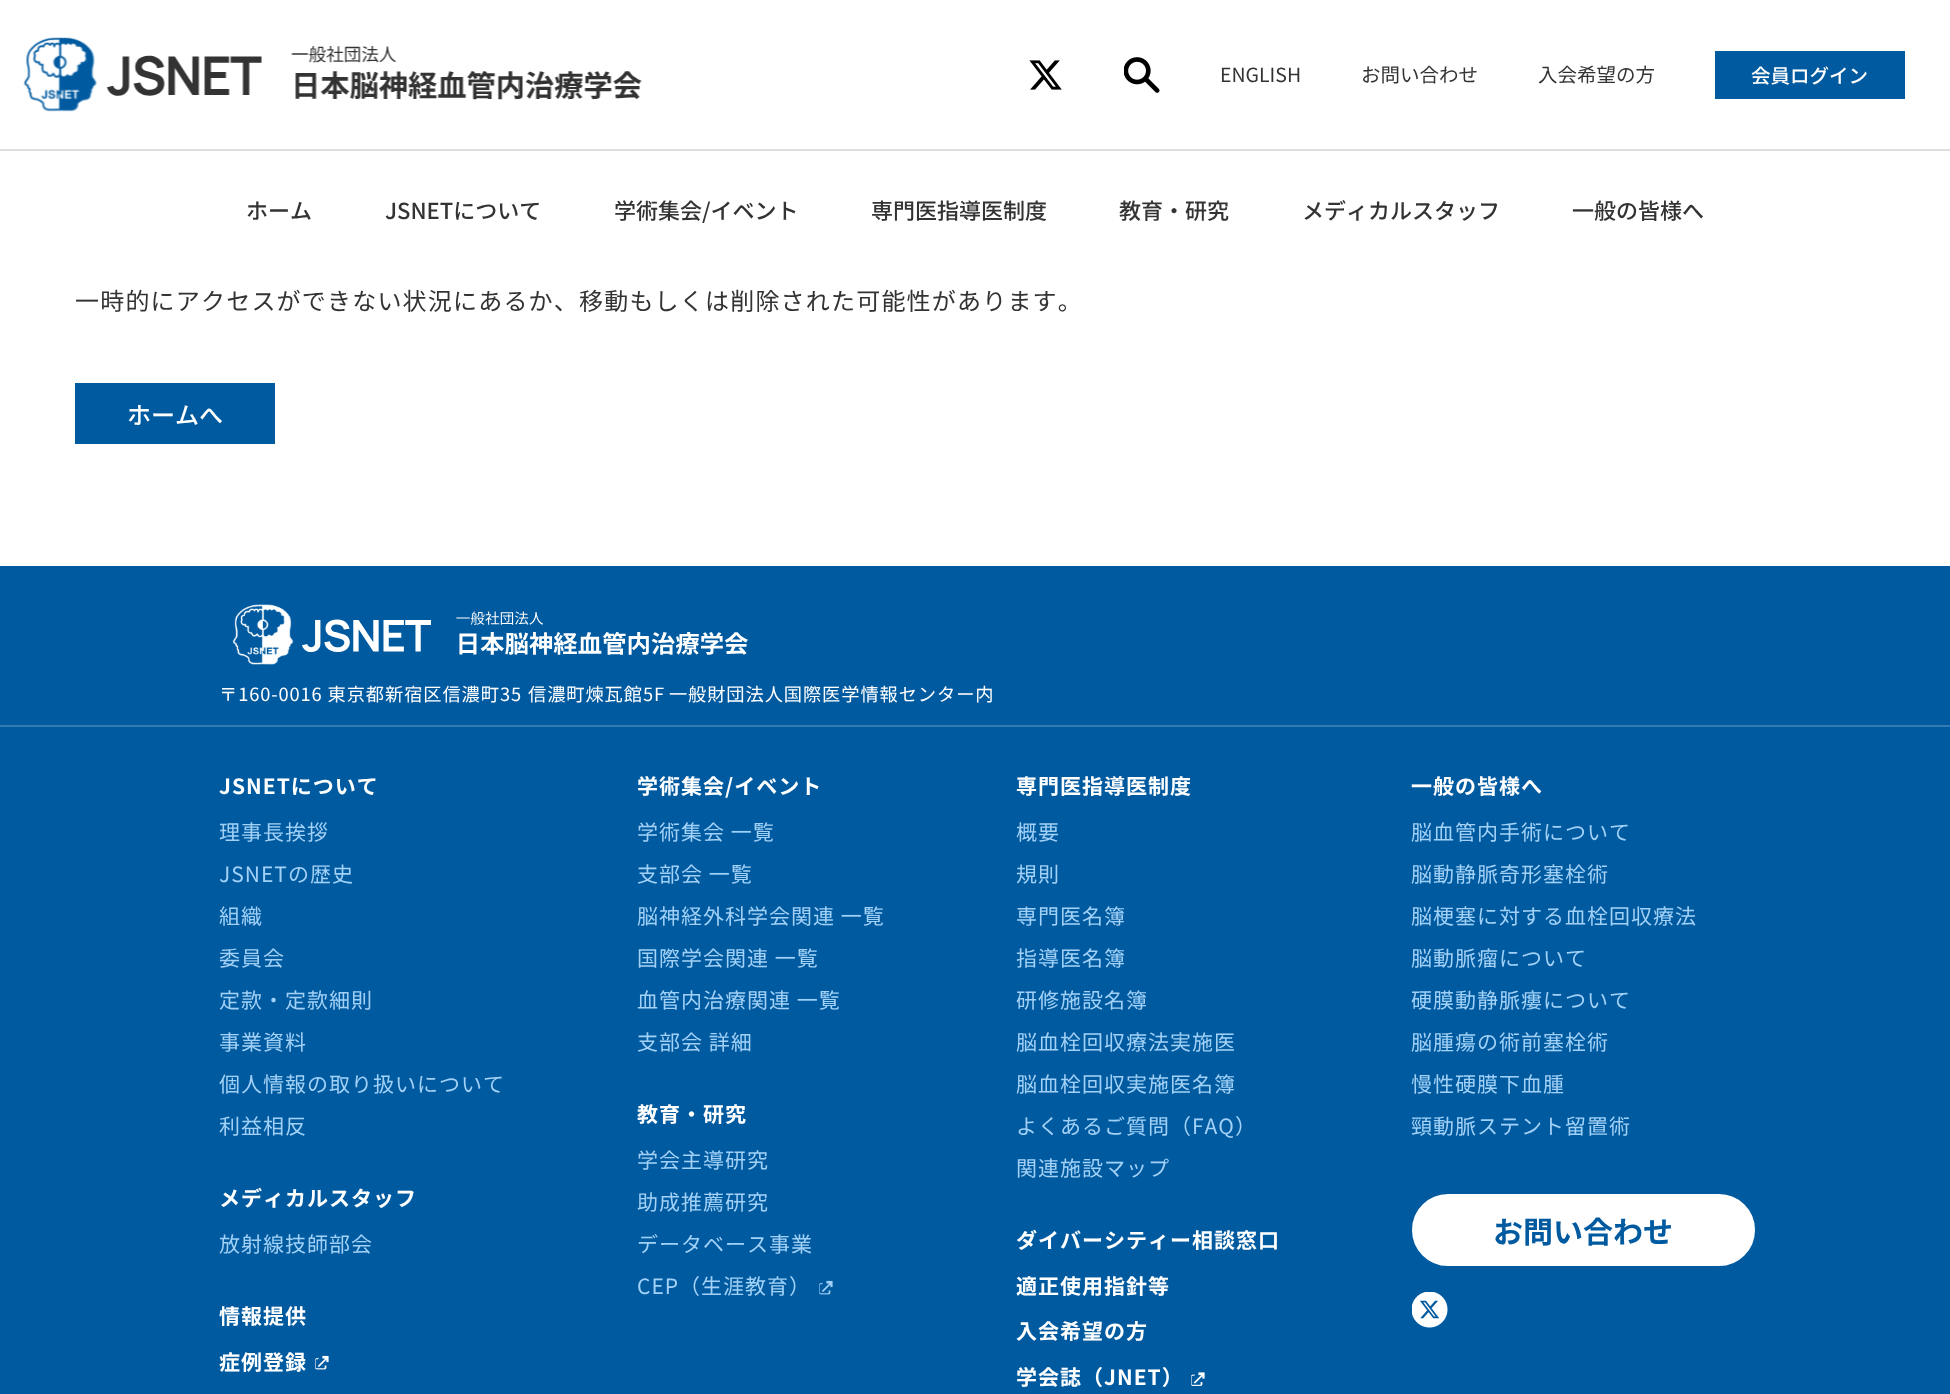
<!DOCTYPE html>
<meta charset="utf-8">
<style>body { margin: 0 } canvas { display: block }</style>
<canvas id="canvas" width="1950" height="1394"></canvas>
<img id="img1" src="img_01.png" hidden>
<img id="img2" src="img_02.png" hidden>
<img id="img3" src="img_03.png" hidden>
<img id="img4" src="img_04.png" hidden>
<img id="img5" src="img_05.png" hidden>
<img id="img6" src="img_06.png" hidden>
<img id="img7" src="img_07.png" hidden>
<img id="img8" src="img_08.png" hidden>
<script>
window.onload = function () {
	const canvas = document.getElementById("canvas");
	const ctx = canvas.getContext("2d");
	ctx.miterLimit = 4;
	ctx.fontKerning = "none";
	function txt(s, x, y) {
		ctx.fillText(s, x, y);
	}
	function fill(x, y, w, h) {
		ctx.fillRect(x, y, w, h);
	}
	function img(id, x, y, w, h) {
		ctx.drawImage(document.getElementById(id), x, y, w, h);
	}

	ctx.fillStyle = "#FFFFFF";
	fill(0, 0, 1950, 1394);
	img("img1", 23, 37, 619, 75);
	img("img2", 1029, 60, 33, 30);
	img("img3", 1124, 57, 36, 36);
	ctx.fillStyle = "#005AA0";
	fill(1715, 51, 190, 48);
	ctx.fillStyle = "#DEDEDE";
	fill(0, 149, 1950, 2);
	ctx.fillStyle = "#005AA0";
	fill(75, 383, 200, 61);
	fill(0, 566, 1950, 828);
	img("img4", 232, 604, 516, 61);
	img("img5", 315, 1355, 14, 15);
	img("img6", 819, 1280, 14, 15);
	img("img7", 1191, 1372, 14, 14);
	ctx.fillStyle = "#FFFFFF";
	ctx.beginPath();
	ctx.roundRect(1413.5, 1195.5, 340, 69, 34.5);
	ctx.fill();
	ctx.strokeStyle = "#FFFFFF";
	ctx.lineWidth = 3;
	ctx.stroke();
	img("img8", 1412, 1292, 36, 36);
	ctx.fillStyle = "#337BB3";
	fill(0, 725, 1950, 2);
	ctx.font = "19.5px Noto Sans JP";
	ctx.fillStyle = "#333333";
	txt("ENGLISH", 1220, 82);
	txt("お問い合わせ", 1361, 82);
	txt("入会希望の方", 1538, 82);
	ctx.font = "500 19.5px Noto Sans JP";
	ctx.fillStyle = "#FFFFFF";
	txt("会員ログイン", 1751, 83);
	ctx.font = "500 22px Noto Sans JP";
	ctx.fillStyle = "#333333";
	txt("ホーム", 246, 219);
	txt("JSNETについて", 385, 219);
	txt("学術集会/イベント", 614, 219);
	txt("専門医指導医制度", 871, 219);
	txt("教育・研究", 1119, 219);
	txt("メディカルスタッフ", 1302, 219);
	txt("一般の皆様へ", 1572, 219);
	ctx.letterSpacing = "1.2px";
	ctx.font = "24px Noto Sans JP";
	txt("一時的にアクセスができない状況にあるか、移動もしくは削除された可能性があります。", 75, 310);
	ctx.letterSpacing = "0px";
	ctx.font = "500 24px Noto Sans JP";
	ctx.fillStyle = "#FFFFFF";
	txt("ホームへ", 127, 424);
	ctx.letterSpacing = "0.9px";
	ctx.font = "18.25px Noto Sans JP";
	txt("〒160-0016 東京都新宿区信濃町35", 219, 701);
	ctx.wordSpacing = "-1px";
	txt("信濃町煉瓦館5F 一般財団法人国際医学情報センター内", 528, 701);
	ctx.letterSpacing = "1px";
	ctx.wordSpacing = "0px";
	ctx.font = "bold 21px Noto Sans JP";
	txt("JSNETについて", 219, 794);
	ctx.font = "21px Noto Sans JP";
	ctx.fillStyle = "#A1D1F7";
	txt("理事長挨拶", 219, 840);
	txt("JSNETの歴史", 219, 882);
	txt("組織", 219, 924);
	txt("委員会", 219, 966);
	txt("定款・定款細則", 219, 1008);
	txt("事業資料", 219, 1050);
	txt("個人情報の取り扱いについて", 219, 1092);
	txt("利益相反", 219, 1134);
	ctx.font = "bold 21px Noto Sans JP";
	ctx.fillStyle = "#FFFFFF";
	txt("メディカルスタッフ", 219, 1206);
	ctx.font = "21px Noto Sans JP";
	ctx.fillStyle = "#A1D1F7";
	txt("放射線技師部会", 219, 1252);
	ctx.font = "bold 21px Noto Sans JP";
	ctx.fillStyle = "#FFFFFF";
	txt("情報提供", 219, 1324);
	txt("症例登録", 219, 1370);
	txt("学術集会/イベント", 637, 794);
	ctx.font = "21px Noto Sans JP";
	ctx.fillStyle = "#A1D1F7";
	txt("学術集会 一覧", 637, 840);
	txt("支部会 一覧", 637, 882);
	txt("脳神経外科学会関連 一覧", 637, 924);
	txt("国際学会関連 一覧", 637, 966);
	txt("血管内治療関連 一覧", 637, 1008);
	txt("支部会 詳細", 637, 1050);
	ctx.font = "bold 21px Noto Sans JP";
	ctx.fillStyle = "#FFFFFF";
	txt("教育・研究", 637, 1122);
	ctx.font = "21px Noto Sans JP";
	ctx.fillStyle = "#A1D1F7";
	txt("学会主導研究", 637, 1168);
	txt("助成推薦研究", 637, 1210);
	txt("データベース事業", 637, 1252);
	txt("CEP（生涯教育）", 637, 1294);
	ctx.font = "bold 21px Noto Sans JP";
	ctx.fillStyle = "#FFFFFF";
	txt("専門医指導医制度", 1016, 794);
	ctx.font = "21px Noto Sans JP";
	ctx.fillStyle = "#A1D1F7";
	txt("概要", 1016, 840);
	txt("規則", 1016, 882);
	txt("専門医名簿", 1016, 924);
	txt("指導医名簿", 1016, 966);
	txt("研修施設名簿", 1016, 1008);
	txt("脳血栓回収療法実施医", 1016, 1050);
	txt("脳血栓回収実施医名簿", 1016, 1092);
	txt("よくあるご質問（FAQ）", 1016, 1134);
	txt("関連施設マップ", 1016, 1176);
	ctx.font = "bold 21px Noto Sans JP";
	ctx.fillStyle = "#FFFFFF";
	txt("ダイバーシティー相談窓口", 1016, 1248);
	txt("適正使用指針等", 1016, 1294);
	txt("入会希望の方", 1016, 1339);
	txt("学会誌（JNET）", 1016, 1385);
	txt("一般の皆様へ", 1411, 794);
	ctx.font = "21px Noto Sans JP";
	ctx.fillStyle = "#A1D1F7";
	txt("脳血管内手術について", 1411, 840);
	txt("脳動静脈奇形塞栓術", 1411, 882);
	txt("脳梗塞に対する血栓回収療法", 1411, 924);
	txt("脳動脈瘤について", 1411, 966);
	txt("硬膜動静脈瘻について", 1411, 1008);
	txt("脳腫瘍の術前塞栓術", 1411, 1050);
	txt("慢性硬膜下血腫", 1411, 1092);
	txt("頸動脈ステント留置術", 1411, 1134);
	ctx.letterSpacing = "0px";
	ctx.font = "bold 30px Noto Sans JP";
	ctx.fillStyle = "#005AA0";
	txt("お問い合わせ", 1493, 1243);
};
</script>
